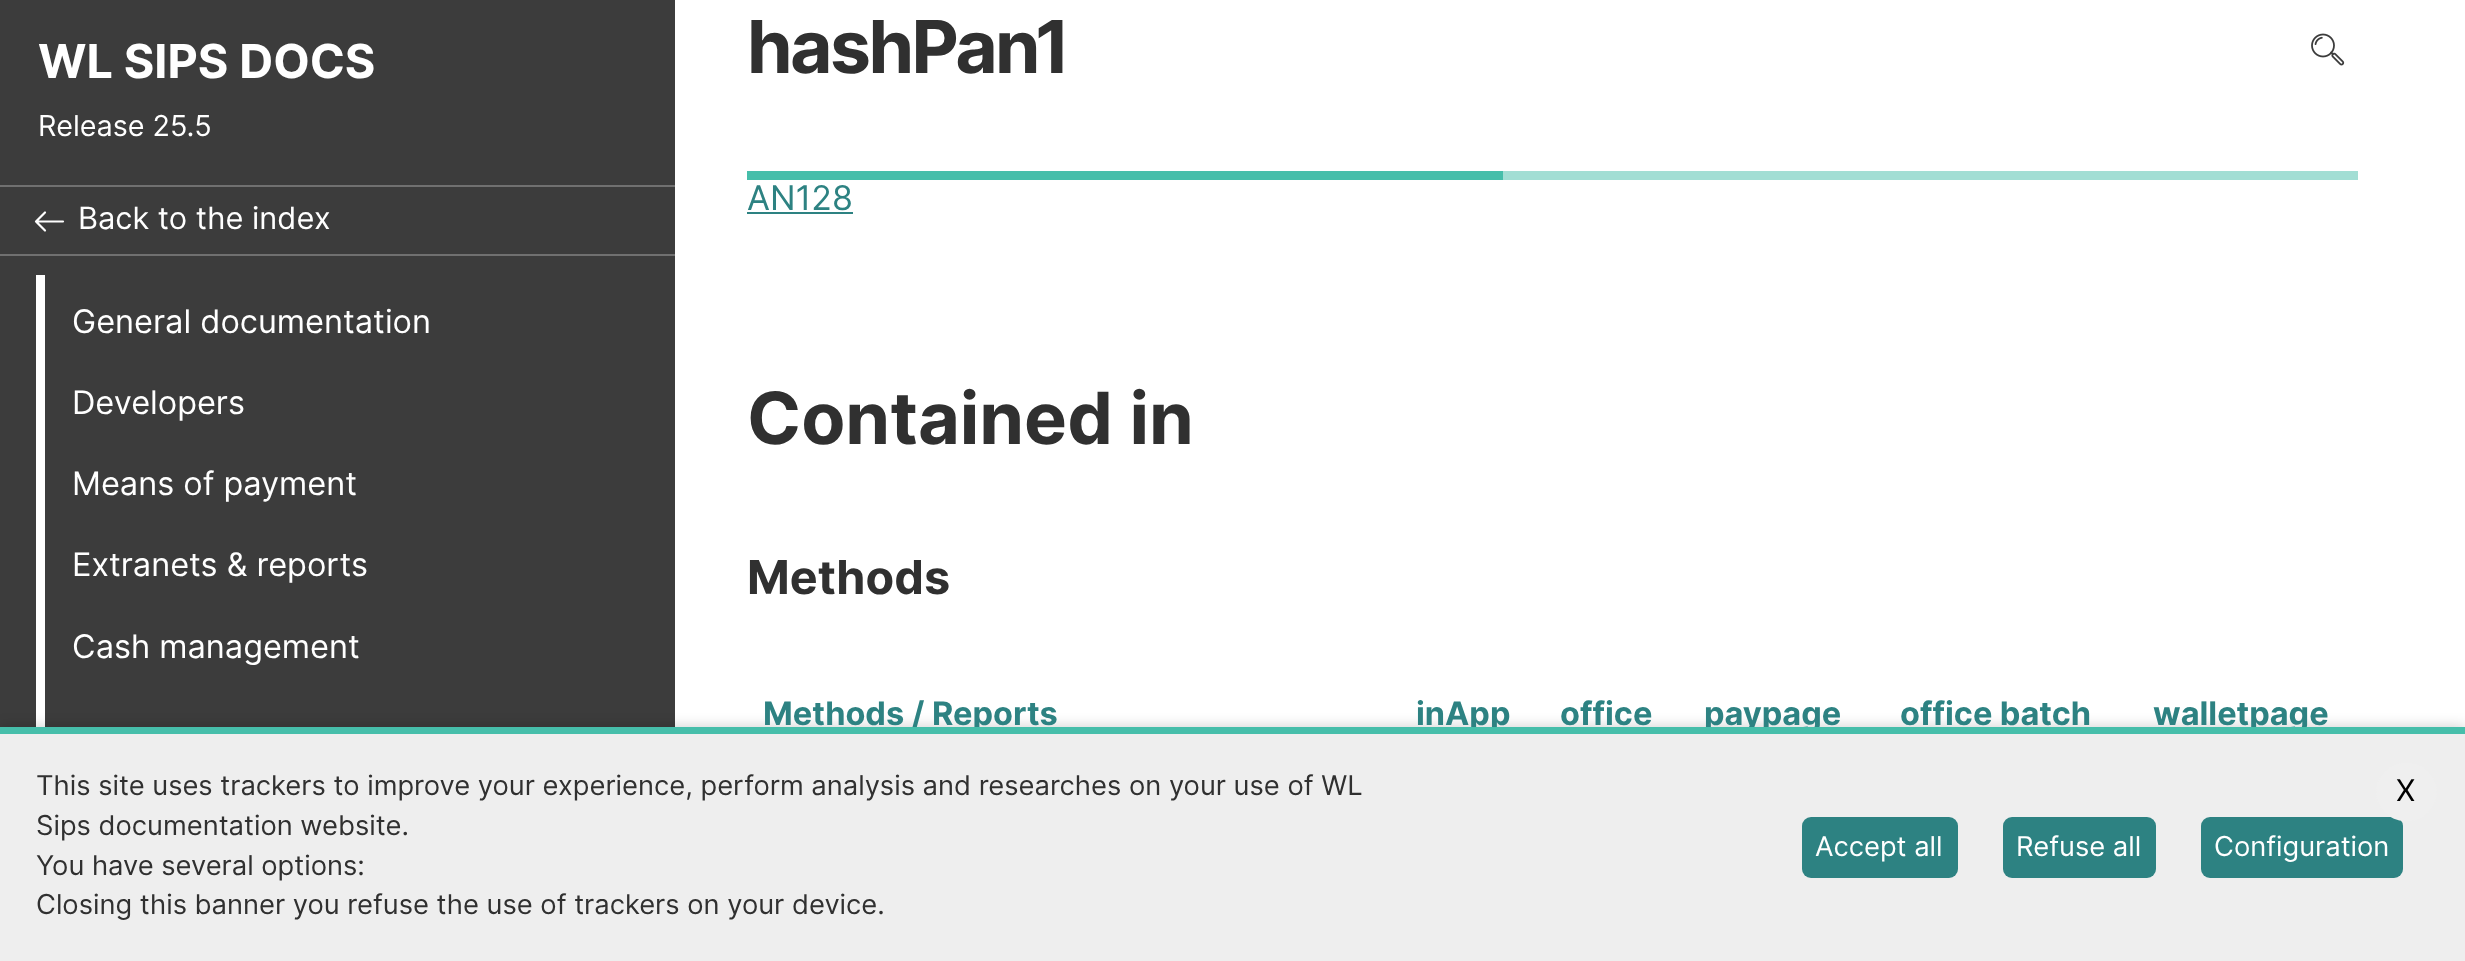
<!DOCTYPE html>
<meta charset="utf-8">
<style>body { margin: 0 } canvas { display: block }</style>
<canvas id="canvas" width="2465" height="961"></canvas>
<img id="img1" src="img_01.png" hidden>
<script>
window.onload = function () {
	const canvas = document.getElementById("canvas");
	const ctx = canvas.getContext("2d");
	ctx.miterLimit = 4;
	ctx.fontKerning = "normal";
	function txt(s, x, y) {
		ctx.fillText(s, x, y);
	}
	function fill(x, y, w, h) {
		ctx.fillRect(x, y, w, h);
	}
	function round(x, y, w, h, r) {
		ctx.beginPath();
		ctx.roundRect(x, y, w, h, r);
		ctx.fill();
	}
	function img(id, x, y, w, h) {
		ctx.drawImage(document.getElementById(id), x, y, w, h);
	}

	ctx.fillStyle = "#FFFFFF";
	fill(0, 0, 2465, 961);
	ctx.fillStyle = "#3C3C3C";
	fill(0, 187, 675, 540);
	ctx.beginPath();
	ctx.moveTo(38, 221.5);
	ctx.lineTo(63, 221.5);
	ctx.moveTo(45, 212.5);
	ctx.lineTo(36, 221.5);
	ctx.moveTo(45, 230.5);
	ctx.lineTo(36, 221.5);
	ctx.strokeStyle = "#FFFFFF";
	ctx.lineWidth = 2.2;
	ctx.lineCap = "round";
	ctx.stroke();
	ctx.fillStyle = "#707070";
	fill(0, 185, 675, 2);
	fill(0, 254, 675, 2);
	ctx.fillStyle = "#FFFFFF";
	fill(36, 275, 9, 452);
	img("img1", 2311, 33, 34, 33);
	ctx.fillStyle = "#A2DED4";
	fill(1503, 171, 855, 9);
	ctx.fillStyle = "#46BEAA";
	fill(747, 171, 756, 9);
	ctx.fillStyle = "#2D8282";
	fill(747, 212, 106, 2);
	ctx.fillStyle = "#3C3C3C";
	fill(0, 0, 675, 185);
	ctx.fillStyle = "rgba(0, 0, 0, 0.2)";
	ctx.filter = "blur(7px)";
	ctx.beginPath();
	ctx.rect(0, 727, 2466, 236);
	ctx.fill();
	ctx.filter = "none";
	ctx.fillStyle = "#EEEEEE";
	fill(0, 734, 2465, 227);
	ctx.fillStyle = "#2D8282";
	round(2201, 817, 202, 61, 9);
	ctx.fillStyle = "#EFEFEF";
	round(2376, 763, 61, 58, 29);
	ctx.fillStyle = "#2D8282";
	round(1802, 817, 156, 61, 9);
	round(2003, 817, 153, 61, 9);
	ctx.font = "30.75px Inter";
	ctx.fillStyle = "#FFFFFF";
	txt("Back to the index", 78, 229);
	ctx.font = "32.5px Inter";
	txt("General documentation", 72, 333);
	txt("Developers", 72, 414);
	txt("Means of payment", 72, 495);
	txt("Extranets & reports", 72, 576);
	txt("Cash management", 72, 658);
	ctx.letterSpacing = "-2.5px";
	ctx.font = "bold 73px Inter";
	ctx.fillStyle = "#303030";
	txt("hashPan1", 747, 73);
	ctx.letterSpacing = "0px";
	ctx.font = "34px Inter";
	ctx.fillStyle = "#2D8282";
	txt("AN128", 747, 210);
	ctx.font = "bold 72px Inter";
	ctx.fillStyle = "#303030";
	txt("Contained in", 747, 444);
	ctx.font = "bold 46.75px Inter";
	txt("Methods", 747, 594);
	ctx.font = "bold 32.5px Inter";
	ctx.fillStyle = "#2D8282";
	txt("Methods / Reports", 763, 725);
	txt("inApp", 1416, 725);
	txt("office", 1560, 725);
	txt("paypage", 1704, 725);
	txt("office batch", 1900, 725);
	txt("walletpage", 2153, 725);
	ctx.font = "bold 46.75px Inter";
	ctx.fillStyle = "#FFFFFF";
	txt("WL SIPS DOCS", 38, 78);
	ctx.font = "28.75px Inter";
	txt("Release 25.5", 38, 136);
	ctx.fillStyle = "#46BEAA";
	fill(0, 727, 2465, 7);
	ctx.font = "27.35px Inter";
	ctx.fillStyle = "#303030";
	txt("This site uses trackers to improve your experience, perform analysis and researches on your use of WL", 36, 795);
	txt("Sips documentation website.", 36, 835);
	txt("You have several options:", 36, 875);
	txt("Closing this banner you refuse the use of trackers on your device.", 36, 914);
	ctx.font = "30px Inter";
	ctx.fillStyle = "#000000";
	txt("X", 2396, 801);
	ctx.font = "27.35px Inter";
	ctx.fillStyle = "#FFFFFF";
	txt("Accept all", 1815, 856);
	txt("Refuse all", 2016, 856);
	txt("Configuration", 2214, 856);
};
</script>
